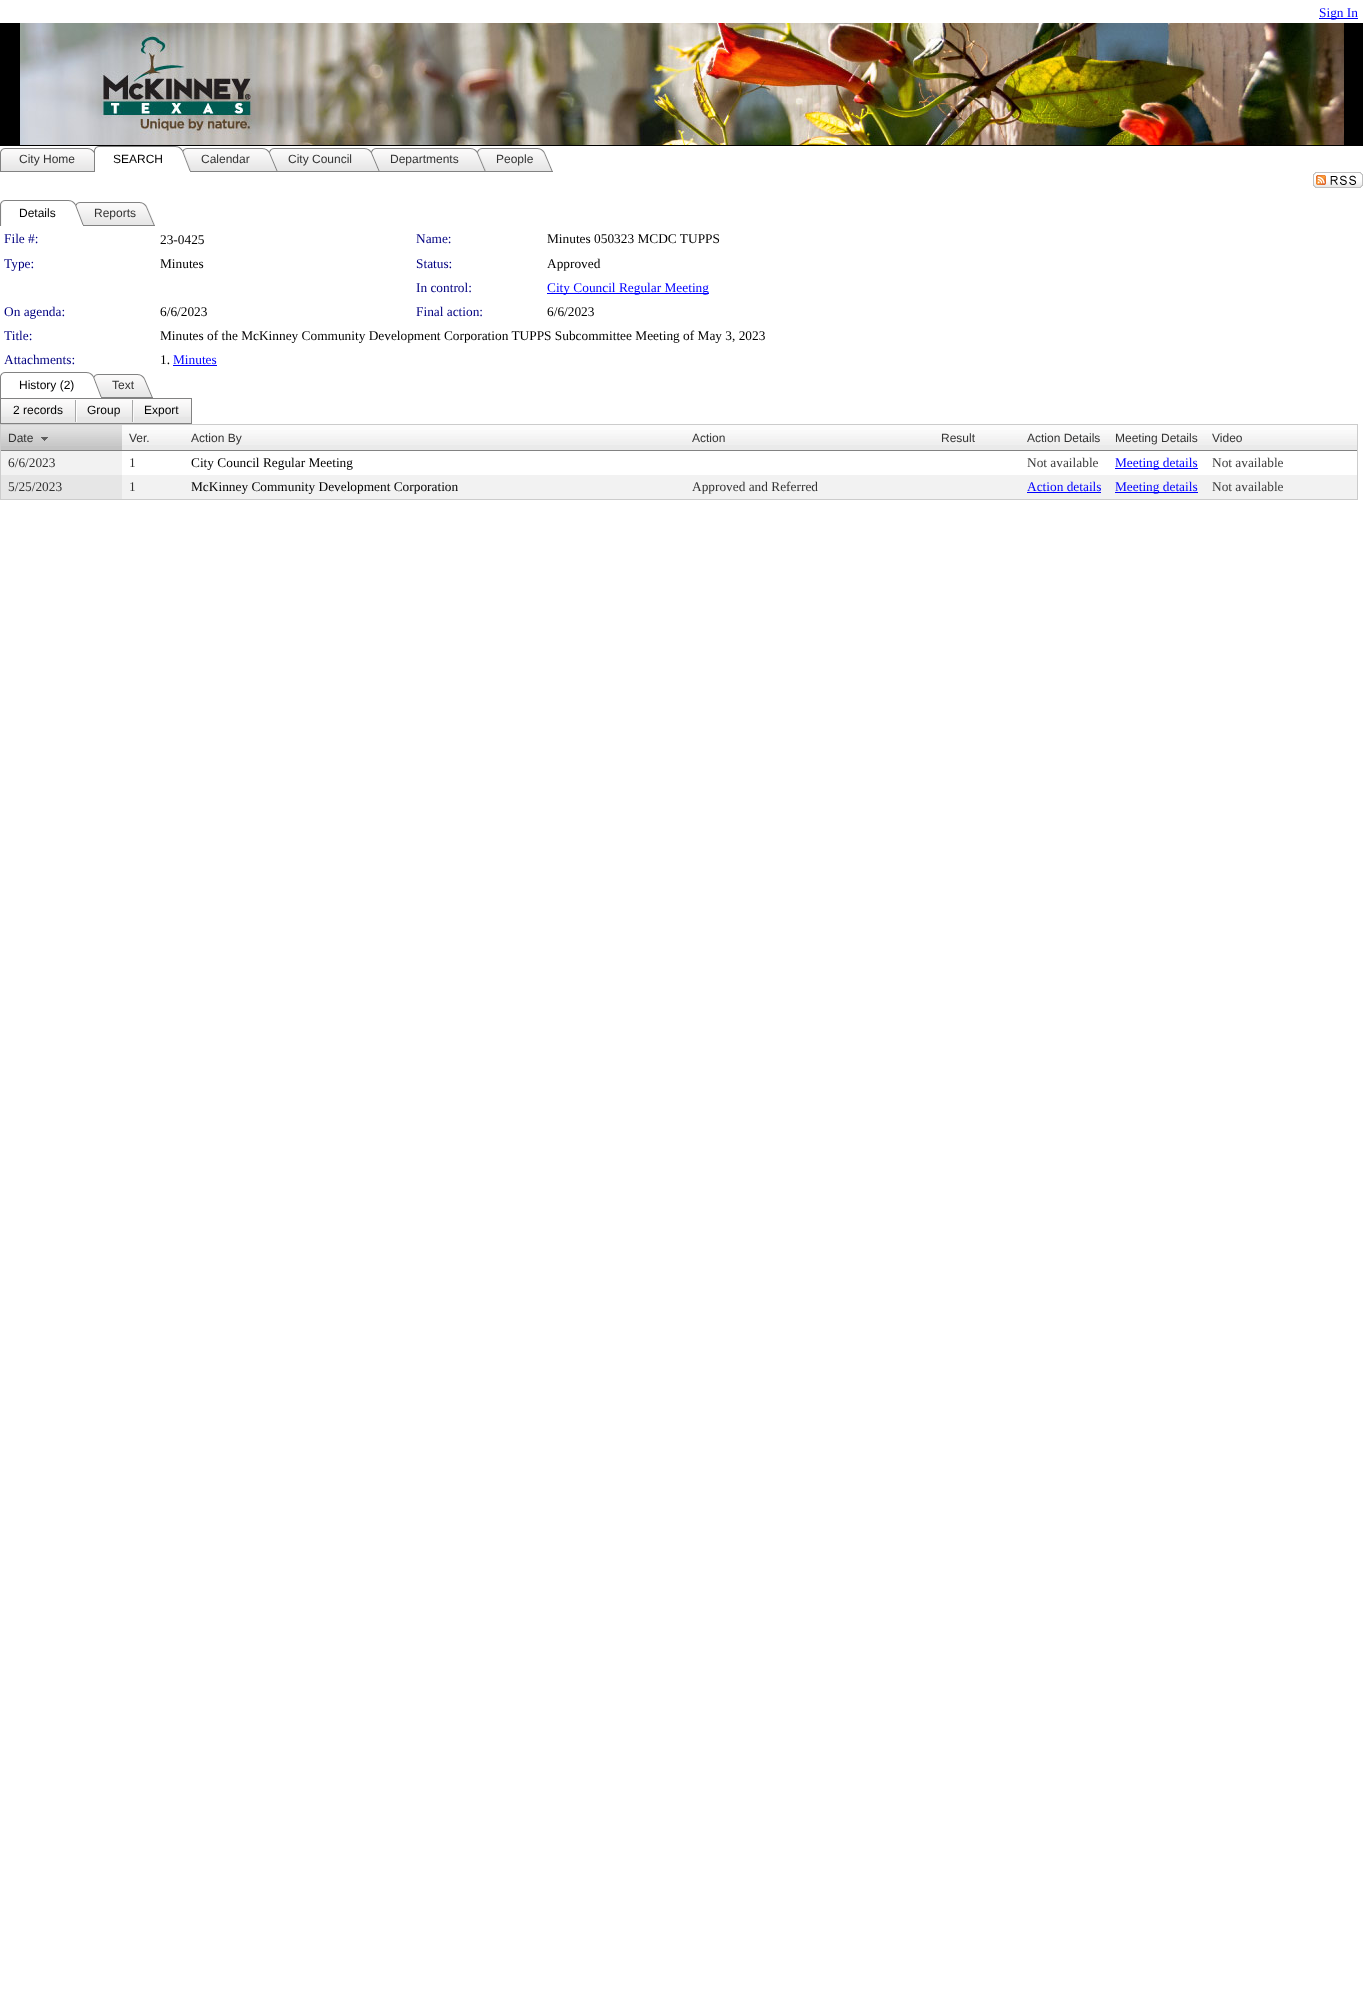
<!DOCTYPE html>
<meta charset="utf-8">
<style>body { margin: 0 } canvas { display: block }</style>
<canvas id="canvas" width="1363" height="1993"></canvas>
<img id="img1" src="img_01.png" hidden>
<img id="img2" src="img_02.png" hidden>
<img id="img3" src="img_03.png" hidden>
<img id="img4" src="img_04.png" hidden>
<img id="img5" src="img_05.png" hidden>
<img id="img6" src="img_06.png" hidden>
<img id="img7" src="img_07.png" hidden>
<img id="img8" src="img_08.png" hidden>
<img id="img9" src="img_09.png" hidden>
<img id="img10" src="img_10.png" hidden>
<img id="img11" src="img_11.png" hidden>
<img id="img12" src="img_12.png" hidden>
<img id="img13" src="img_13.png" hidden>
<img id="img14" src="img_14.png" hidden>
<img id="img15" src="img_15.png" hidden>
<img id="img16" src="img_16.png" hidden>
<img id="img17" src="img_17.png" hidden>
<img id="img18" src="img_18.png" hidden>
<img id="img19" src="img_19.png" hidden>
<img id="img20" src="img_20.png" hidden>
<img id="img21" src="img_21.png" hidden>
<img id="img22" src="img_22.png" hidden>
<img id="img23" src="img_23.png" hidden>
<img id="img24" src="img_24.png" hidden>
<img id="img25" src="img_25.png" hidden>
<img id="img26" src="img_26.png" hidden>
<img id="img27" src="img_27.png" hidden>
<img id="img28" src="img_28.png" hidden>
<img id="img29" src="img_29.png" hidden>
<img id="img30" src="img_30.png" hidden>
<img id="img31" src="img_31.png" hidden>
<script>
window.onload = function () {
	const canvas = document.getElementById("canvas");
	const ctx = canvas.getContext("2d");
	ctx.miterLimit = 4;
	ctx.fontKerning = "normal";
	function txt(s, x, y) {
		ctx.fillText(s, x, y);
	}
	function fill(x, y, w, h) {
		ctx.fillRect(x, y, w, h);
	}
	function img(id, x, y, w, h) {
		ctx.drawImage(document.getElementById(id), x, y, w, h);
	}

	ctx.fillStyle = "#FFFFFF";
	fill(0, 0, 1363, 1993);
	ctx.fillStyle = "#0000FF";
	fill(1319, 18, 39, 1);
	ctx.fillStyle = "#000000";
	fill(0, 23, 1363, 123);
	img("img1", 20, 23, 1324, 122);
	img("img2", 0, 148, 9, 24);
	img("img3", 9, 148, 85, 24);
	img("img4", 94, 146, 9, 26);
	img("img5", 103, 146, 79, 5);
	img("img6", 182, 148, 9, 24);
	img("img7", 191, 148, 78, 24);
	img("img8", 269, 148, 9, 24);
	img("img9", 278, 148, 93, 24);
	img("img8", 371, 148, 9, 24);
	img("img10", 380, 148, 97, 24);
	img("img11", 477, 148, 9, 24);
	img("img12", 486, 148, 67, 24);
	img("img13", 1313, 172, 50, 16);
	img("img14", 0, 200, 10, 26);
	img("img15", 9, 200, 66, 5);
	img("img16", 75, 202, 9, 24);
	img("img17", 84, 202, 71, 24);
	ctx.fillStyle = "#0000FF";
	fill(547, 293, 162, 1);
	fill(173, 365, 44, 1);
	img("img4", 0, 372, 9, 26);
	img("img18", 9, 372, 84, 5);
	img("img16", 93, 374, 9, 24);
	img("img19", 102, 374, 51, 24);
	ctx.fillStyle = "#E6E6E6";
	fill(1, 417, 190, 6);
	img("img20", 1, 399, 190, 18);
	ctx.strokeStyle = "#828282";
	ctx.strokeRect(0.5, 398.5, 191, 25);
	img("img21", 75, 400, 2, 22);
	img("img22", 132, 400, 2, 22);
	ctx.strokeStyle = "#CCCCCC";
	ctx.strokeRect(0.5, 424.5, 1357, 75);
	ctx.fillStyle = "#C4C4C4";
	fill(1, 446, 121, 4);
	img("img23", 1, 425, 121, 21);
	ctx.fillStyle = "#828282";
	fill(1, 450, 1356, 1);
	img("img24", 41, 437, 7, 4);
	ctx.fillStyle = "#EAEAEA";
	fill(122, 445, 1235, 5);
	img("img25", 122, 425, 62, 20);
	img("img26", 184, 425, 501, 20);
	img("img27", 685, 425, 249, 20);
	img("img28", 934, 425, 86, 20);
	img("img29", 1020, 425, 88, 20);
	img("img30", 1108, 425, 97, 20);
	img("img31", 1205, 425, 152, 20);
	ctx.fillStyle = "#F2F2F2";
	fill(1, 451, 121, 24);
	ctx.fillStyle = "#0000FF";
	fill(1115, 468, 83, 1);
	ctx.fillStyle = "#F2F2F2";
	fill(122, 475, 1235, 24);
	ctx.fillStyle = "#E6E6E6";
	fill(1, 475, 121, 24);
	ctx.fillStyle = "#0000FF";
	fill(1027, 492, 74, 1);
	fill(1115, 492, 83, 1);
	ctx.font = "13.35px Liberation Serif";
	txt("Sign In", 1319, 17);
	ctx.font = "12px Liberation Sans";
	ctx.fillStyle = "#333333";
	txt("City Home", 19, 163);
	ctx.fillStyle = "#000000";
	txt("SEARCH", 113, 163);
	ctx.fillStyle = "#333333";
	txt("Calendar", 201, 163);
	txt("City Council", 288, 163);
	txt("Departments", 390, 163);
	txt("People", 496, 163);
	ctx.fillStyle = "#000000";
	txt("Details", 19, 217);
	ctx.fillStyle = "#333333";
	txt("Reports", 94, 217);
	ctx.font = "13.35px Liberation Serif";
	ctx.fillStyle = "#000080";
	txt("File #:", 4, 243);
	ctx.fillStyle = "#000000";
	txt("23-0425", 160, 244);
	ctx.fillStyle = "#000080";
	txt("Name:", 416, 243);
	ctx.fillStyle = "#000000";
	txt("Minutes 050323 MCDC TUPPS", 547, 243);
	ctx.fillStyle = "#000080";
	txt("Type:", 4, 268);
	ctx.fillStyle = "#000000";
	txt("Minutes", 160, 268);
	ctx.fillStyle = "#000080";
	txt("Status:", 416, 268);
	ctx.fillStyle = "#000000";
	txt("Approved", 547, 268);
	ctx.fillStyle = "#000080";
	txt("In control:", 416, 292);
	ctx.fillStyle = "#0000FF";
	txt("City Council Regular Meeting", 547, 292);
	ctx.fillStyle = "#000080";
	txt("On agenda:", 4, 316);
	ctx.fillStyle = "#000000";
	txt("6/6/2023", 160, 316);
	ctx.fillStyle = "#000080";
	txt("Final action:", 416, 316);
	ctx.fillStyle = "#000000";
	txt("6/6/2023", 547, 316);
	ctx.fillStyle = "#000080";
	txt("Title:", 4, 340);
	ctx.fillStyle = "#000000";
	txt("Minutes of the McKinney Community Development Corporation TUPPS Subcommittee Meeting of May 3, 2023", 160, 340);
	ctx.fillStyle = "#000080";
	txt("Attachments:", 4, 364);
	ctx.fillStyle = "#000000";
	txt("1.", 160, 364);
	ctx.fillStyle = "#0000FF";
	txt("Minutes", 173, 364);
	ctx.font = "12px Liberation Sans";
	ctx.fillStyle = "#000000";
	txt("History (2)", 19, 389);
	ctx.fillStyle = "#333333";
	txt("Text", 112, 389);
	ctx.fillStyle = "#000000";
	txt("2 records", 13, 414);
	txt("Group", 87, 414);
	txt("Export", 144, 414);
	ctx.fillStyle = "#333333";
	txt("Date", 8, 442);
	txt("Ver.", 129, 442);
	txt("Action By", 191, 442);
	txt("Action", 692, 442);
	txt("Result", 941, 442);
	txt("Action Details", 1027, 442);
	txt("Meeting Details", 1115, 442);
	txt("Video", 1212, 442);
	ctx.font = "13.35px Liberation Serif";
	txt("6/6/2023", 8, 467);
	txt("1", 129, 467);
	ctx.fillStyle = "#000000";
	txt("City Council Regular Meeting", 191, 467);
	ctx.fillStyle = "#3D3D3D";
	txt("Not available", 1027, 467);
	ctx.fillStyle = "#0000FF";
	txt("Meeting details", 1115, 467);
	ctx.fillStyle = "#3D3D3D";
	txt("Not available", 1212, 467);
	ctx.fillStyle = "#333333";
	txt("5/25/2023", 8, 491);
	txt("1", 129, 491);
	ctx.fillStyle = "#000000";
	txt("McKinney Community Development Corporation", 191, 491);
	ctx.fillStyle = "#333333";
	txt("Approved and Referred", 692, 491);
	ctx.fillStyle = "#0000FF";
	txt("Action details", 1027, 491);
	txt("Meeting details", 1115, 491);
	ctx.fillStyle = "#3D3D3D";
	txt("Not available", 1212, 491);
};
</script>
